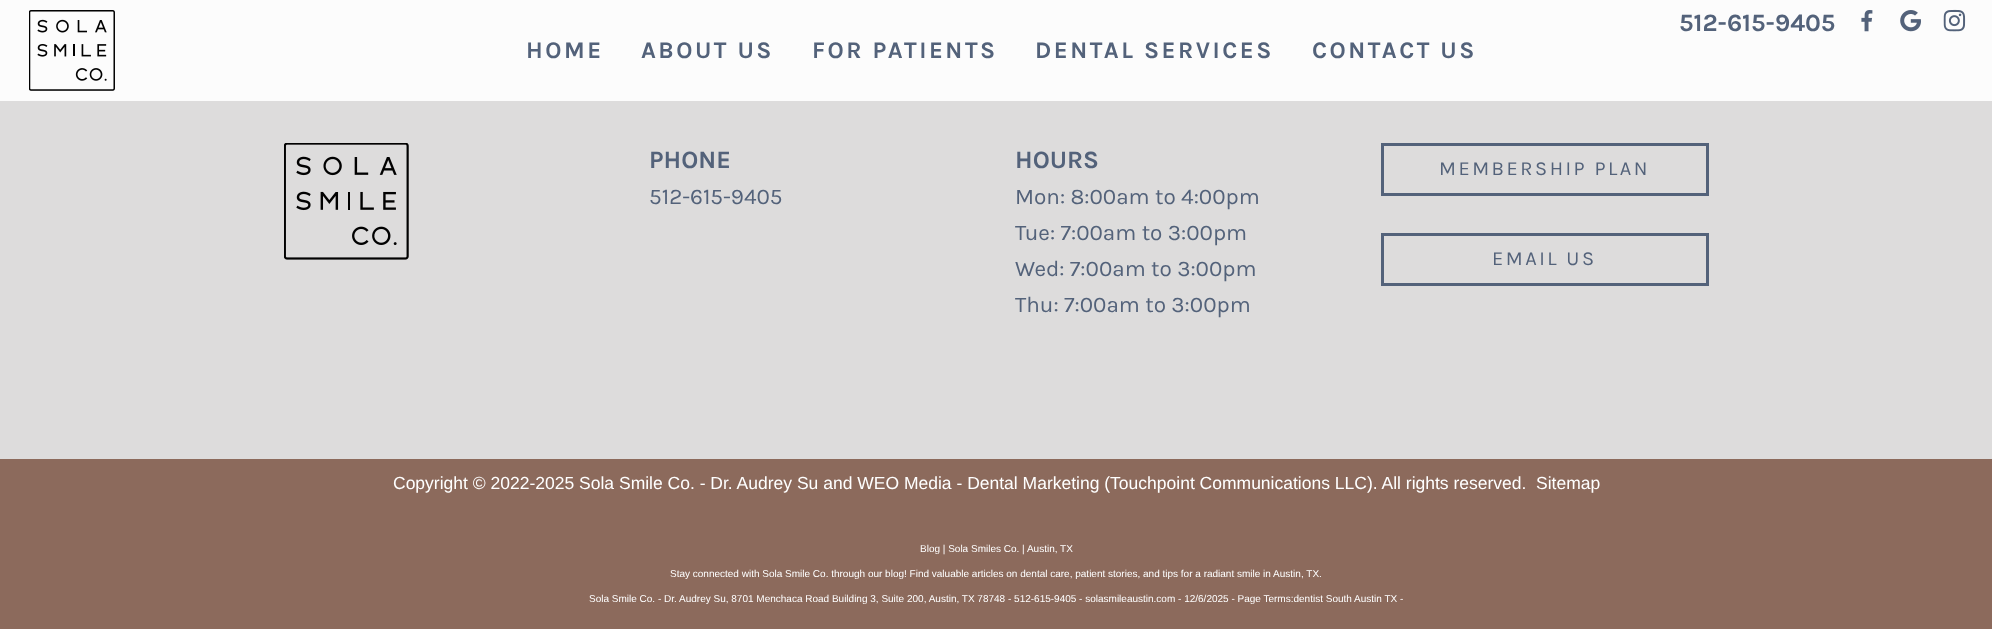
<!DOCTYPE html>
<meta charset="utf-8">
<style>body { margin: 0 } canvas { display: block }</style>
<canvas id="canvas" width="1992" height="629"></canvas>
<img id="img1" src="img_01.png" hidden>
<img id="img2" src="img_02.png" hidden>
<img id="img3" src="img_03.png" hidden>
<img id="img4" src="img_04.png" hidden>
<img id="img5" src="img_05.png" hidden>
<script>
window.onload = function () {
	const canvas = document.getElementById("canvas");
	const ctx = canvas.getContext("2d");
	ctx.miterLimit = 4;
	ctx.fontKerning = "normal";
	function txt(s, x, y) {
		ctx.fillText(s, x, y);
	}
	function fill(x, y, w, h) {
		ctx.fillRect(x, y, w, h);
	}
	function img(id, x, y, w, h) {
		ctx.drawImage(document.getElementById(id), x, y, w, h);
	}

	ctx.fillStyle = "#DDDCDC";
	fill(0, 0, 1992, 629);
	ctx.fillStyle = "#FCFCFC";
	fill(0, 0, 1992, 101);
	img("img1", 29, 10, 86, 81);
	img("img2", 1861, 10, 12, 22);
	img("img3", 1900, 10, 21, 22);
	img("img4", 1943, 9, 23, 23);
	img("img5", 284, 143, 125, 117);
	ctx.strokeStyle = "#53627A";
	ctx.lineWidth = 3;
	ctx.strokeRect(1382.5, 144.5, 325, 50);
	ctx.strokeRect(1382.5, 234.5, 325, 50);
	ctx.fillStyle = "#8C6A5C";
	fill(0, 459, 1992, 170);
	ctx.font = "bold 25px Karla";
	ctx.fillStyle = "#53627A";
	txt("512-615-9405", 1679, 31);
	ctx.letterSpacing = "2.5px";
	ctx.font = "bold 23.75px Karla";
	txt("HOME", 526, 58);
	txt("ABOUT US", 641, 58);
	txt("FOR PATIENTS", 812, 58);
	txt("DENTAL SERVICES", 1035, 58);
	txt("CONTACT US", 1312, 58);
	ctx.letterSpacing = "0px";
	ctx.font = "bold 25px Karla";
	txt("PHONE", 649, 168);
	ctx.font = "22.5px Karla";
	txt("512-615-9405", 649, 204);
	ctx.font = "bold 25px Karla";
	txt("HOURS", 1015, 168);
	ctx.font = "22.5px Karla";
	txt("Mon: 8:00am to 4:00pm", 1015, 204);
	txt("Tue: 7:00am to 3:00pm", 1015, 240);
	txt("Wed: 7:00am to 3:00pm", 1015, 276);
	txt("Thu: 7:00am to 3:00pm", 1015, 312);
	ctx.letterSpacing = "2.5px";
	ctx.font = "20px Karla";
	txt("MEMBERSHIP PLAN", 1439, 175);
	txt("EMAIL US", 1492, 265);
	ctx.letterSpacing = "0px";
	ctx.font = "17.5px Liberation Sans";
	ctx.fillStyle = "#FFFFFF";
	txt("Copyright © 2022-2025 Sola Smile Co. - Dr. Audrey Su and WEO Media - Dental Marketing (Touchpoint Communications LLC). All rights reserved.", 393, 489);
	txt("Sitemap", 1536, 489);
	ctx.font = "10px Liberation Sans";
	txt("Blog | Sola Smiles Co. | Austin, TX", 920, 552);
	txt("Stay connected with Sola Smile Co. through our blog! Find valuable articles on dental care, patient stories, and tips for a radiant smile in Austin, TX.", 670, 577);
	txt("Sola Smile Co. - Dr. Audrey Su, 8701 Menchaca Road Building 3, Suite 200, Austin, TX 78748 - 512-615-9405 - solasmileaustin.com - 12/6/2025 - Page Terms:dentist South Austin TX -", 589, 602);
};
</script>
